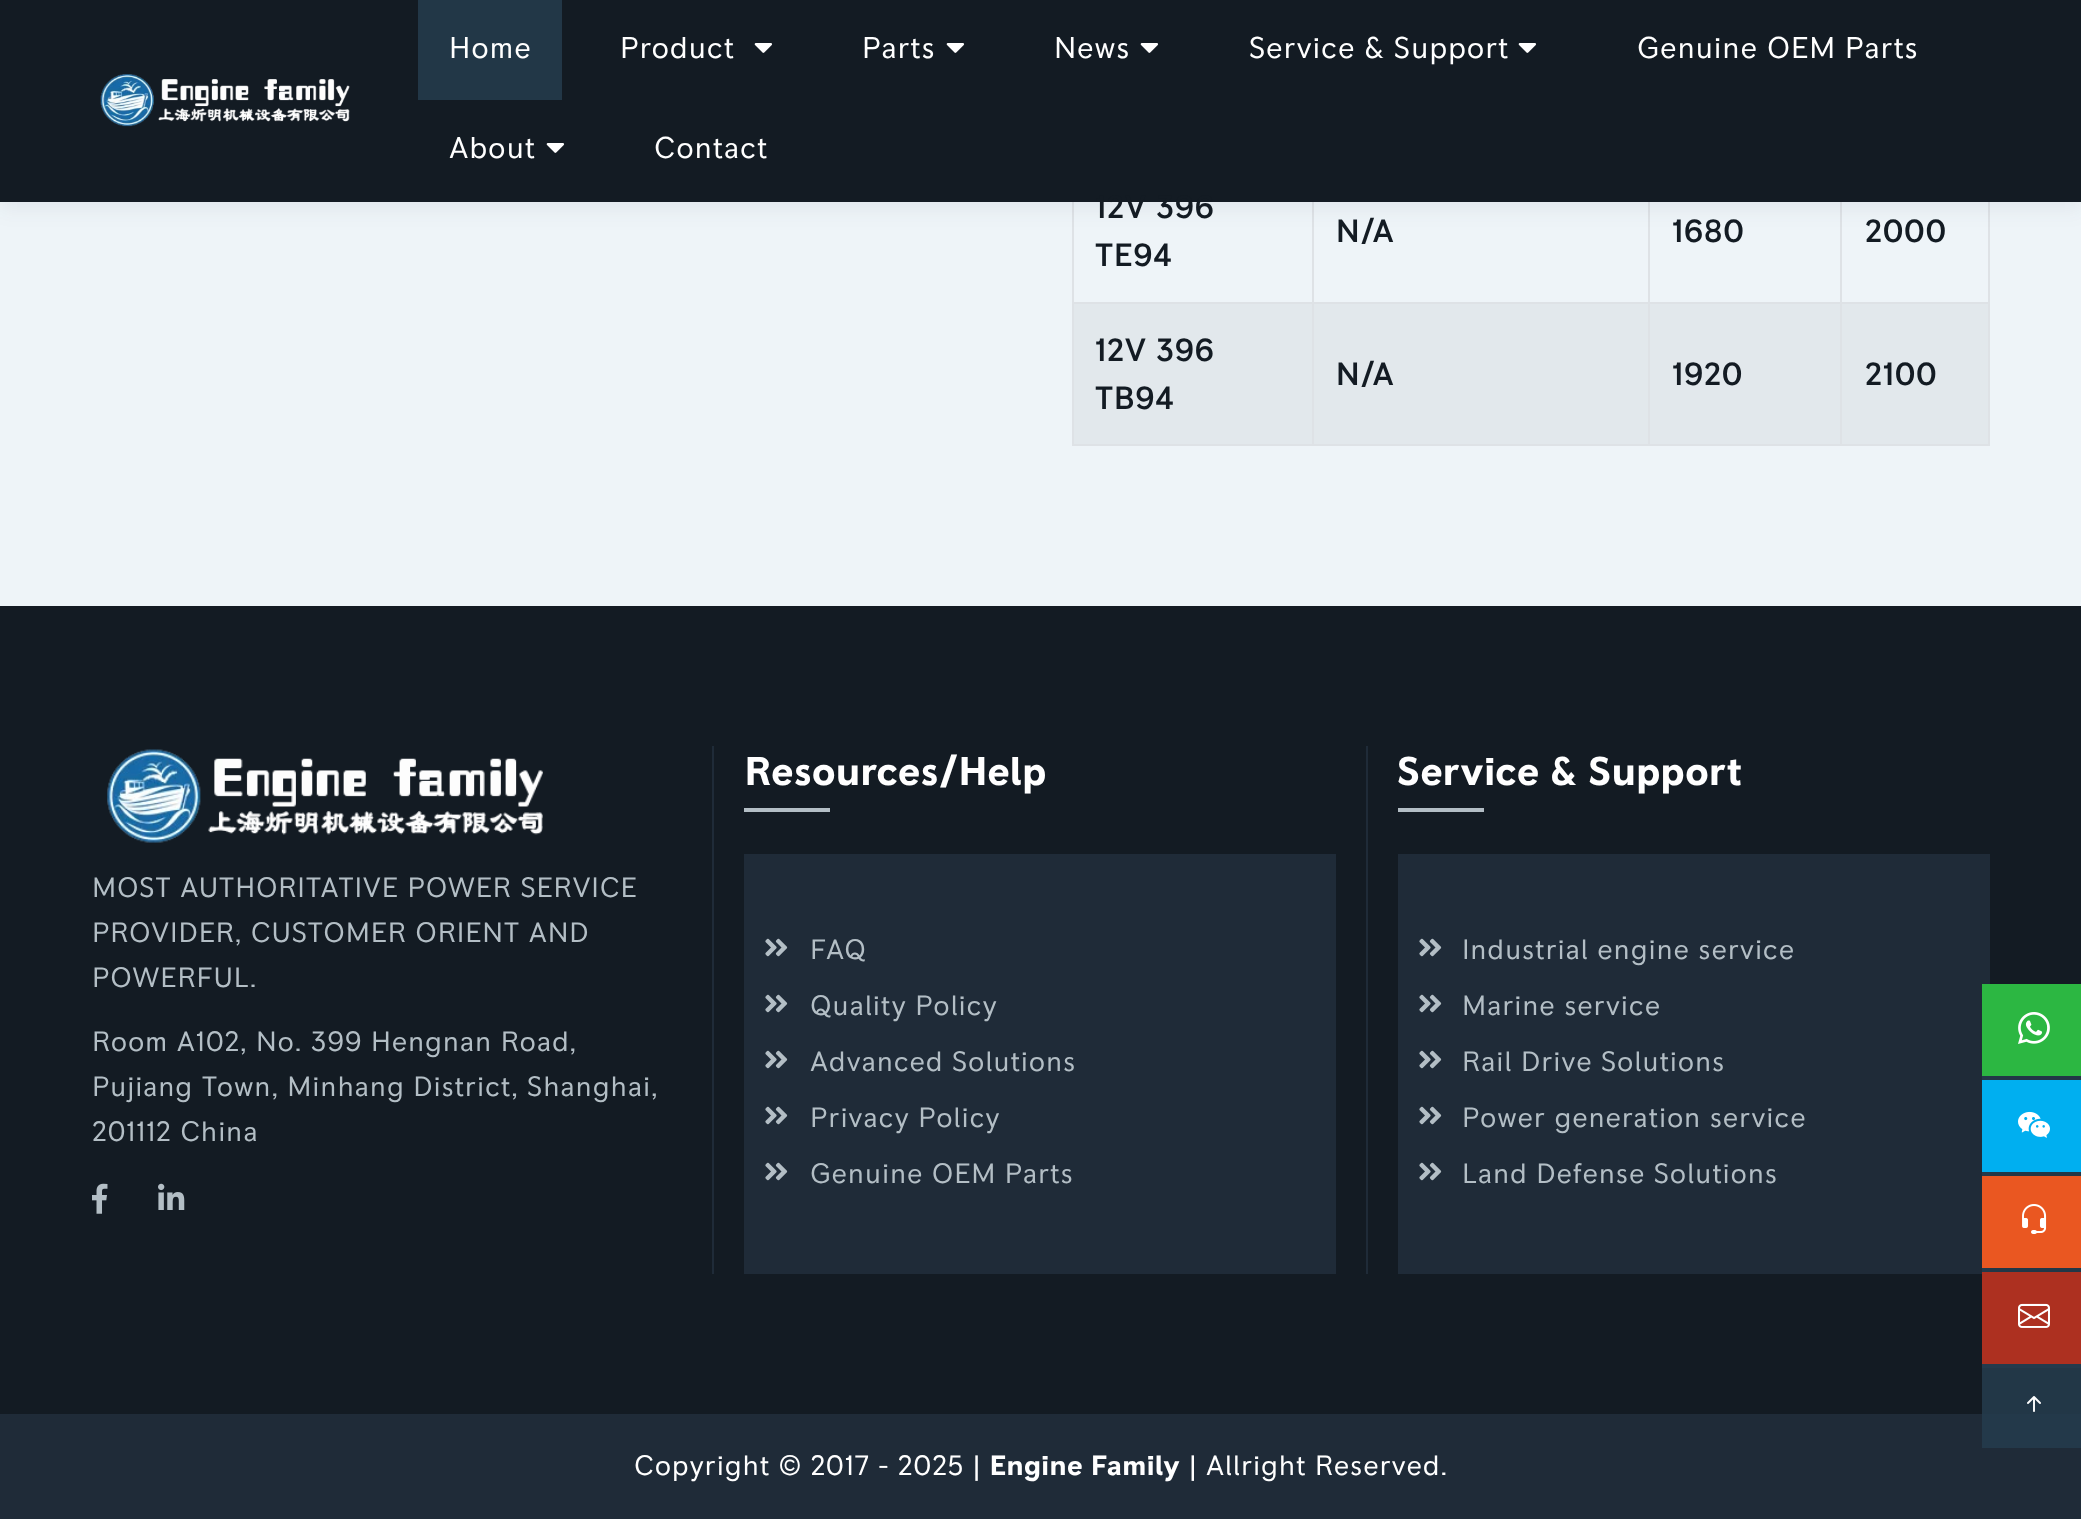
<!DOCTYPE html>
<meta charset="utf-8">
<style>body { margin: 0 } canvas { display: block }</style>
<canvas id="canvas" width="2081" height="1519"></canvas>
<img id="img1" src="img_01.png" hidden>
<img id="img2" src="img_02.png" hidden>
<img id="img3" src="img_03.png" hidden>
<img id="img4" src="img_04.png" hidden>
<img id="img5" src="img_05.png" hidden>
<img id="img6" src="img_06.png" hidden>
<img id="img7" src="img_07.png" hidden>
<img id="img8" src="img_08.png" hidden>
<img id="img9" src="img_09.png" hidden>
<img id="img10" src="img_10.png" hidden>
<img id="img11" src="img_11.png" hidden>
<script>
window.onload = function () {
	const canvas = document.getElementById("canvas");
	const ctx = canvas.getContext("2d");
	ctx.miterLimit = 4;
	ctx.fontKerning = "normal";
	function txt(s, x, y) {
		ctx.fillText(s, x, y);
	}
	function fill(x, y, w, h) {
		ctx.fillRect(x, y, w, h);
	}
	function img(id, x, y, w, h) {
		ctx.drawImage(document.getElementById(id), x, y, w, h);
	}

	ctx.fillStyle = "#EEF4F8";
	fill(0, 0, 2081, 1519);
	ctx.fillStyle = "#DEE2E6";
	fill(1988, 202, 2, 244);
	fill(1072, 444, 918, 2);
	fill(1072, 202, 2, 244);
	fill(1840, 302, 150, 2);
	ctx.fillStyle = "#E2E8EC";
	fill(1074, 304, 914, 140);
	ctx.fillStyle = "#DEE2E6";
	fill(1840, 302, 2, 144);
	fill(1648, 302, 194, 2);
	fill(1648, 302, 2, 144);
	fill(1312, 302, 338, 2);
	fill(1312, 302, 2, 144);
	fill(1072, 302, 242, 2);
	fill(1312, 202, 2, 102);
	fill(1648, 202, 2, 102);
	fill(1840, 202, 2, 102);
	ctx.fillStyle = "rgba(40, 47, 65, 0.06)";
	ctx.filter = "blur(10px)";
	ctx.beginPath();
	ctx.rect(0, 8, 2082, 202);
	ctx.fill();
	ctx.filter = "none";
	ctx.fillStyle = "#131B23";
	fill(0, 0, 2081, 202);
	img("img1", 100, 74, 250, 53);
	ctx.fillStyle = "#223747";
	fill(418, 0, 144, 100);
	img("img2", 754, 43, 19, 10);
	img("img2", 946, 43, 19, 10);
	img("img2", 1140, 43, 19, 10);
	img("img2", 1518, 43, 19, 10);
	img("img2", 546, 143, 19, 10);
	ctx.fillStyle = "#131B23";
	fill(0, 606, 2081, 808);
	ctx.fillStyle = "#223747";
	fill(1982, 1368, 99, 46);
	ctx.fillStyle = "#243A4C";
	fill(1982, 1364, 99, 4);
	ctx.fillStyle = "#223747";
	fill(1990, 1268, 91, 4);
	fill(1990, 1172, 91, 4);
	fill(1990, 1076, 91, 4);
	ctx.fillStyle = "#1F2B38";
	fill(712, 746, 2, 528);
	img("img3", 107, 749, 436, 94);
	img("img4", 92, 1183, 16, 31);
	img("img5", 158, 1183, 27, 27);
	fill(1366, 746, 2, 528);
	ctx.fillStyle = "#B3BEC5";
	fill(744, 808, 86, 4);
	ctx.fillStyle = "#1F2B38";
	fill(744, 854, 592, 420);
	img("img6", 765, 938, 23, 19);
	img("img6", 765, 994, 23, 19);
	img("img6", 765, 1050, 23, 19);
	img("img6", 765, 1106, 23, 19);
	img("img6", 765, 1162, 23, 19);
	ctx.fillStyle = "#B3BEC5";
	fill(1398, 808, 86, 4);
	ctx.fillStyle = "#1F2B38";
	fill(1398, 854, 592, 420);
	ctx.fillStyle = "#23394A";
	fill(1982, 1268, 8, 4);
	fill(1982, 1172, 8, 4);
	fill(1982, 1076, 8, 4);
	img("img6", 1419, 938, 23, 19);
	img("img6", 1419, 994, 23, 19);
	img("img6", 1419, 1050, 23, 19);
	img("img6", 1419, 1106, 23, 19);
	img("img6", 1419, 1162, 23, 19);
	ctx.fillStyle = "#1F2B38";
	fill(0, 1414, 2081, 105);
	ctx.fillStyle = "#23394A";
	fill(1982, 1414, 99, 34);
	ctx.fillStyle = "#2CB742";
	fill(1982, 984, 99, 92);
	img("img7", 2018, 1012, 32, 32);
	ctx.fillStyle = "#00AFF0";
	fill(1982, 1080, 99, 92);
	img("img8", 2018, 1111, 32, 27);
	ctx.fillStyle = "#EA5721";
	fill(1982, 1176, 99, 92);
	img("img9", 2022, 1204, 25, 30);
	ctx.fillStyle = "#AD3020";
	fill(1982, 1272, 99, 92);
	img("img10", 2018, 1303, 32, 25);
	img("img11", 2027, 1396, 14, 16);
	ctx.letterSpacing = "0.8px";
	ctx.font = "30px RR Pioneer";
	ctx.fillStyle = "#FFFFFF";
	txt("Home", 449, 58);
	txt("Product", 620, 58);
	txt("Parts", 862, 58);
	txt("News", 1054, 58);
	txt("Service & Support", 1249, 58);
	txt("Genuine OEM Parts", 1637, 58);
	txt("About", 449, 158);
	txt("Contact", 654, 158);
	ctx.font = "500 32px RR Pioneer";
	ctx.fillStyle = "#131B23";
	txt("12V 396", 1095, 218);
	txt("TE94", 1095, 266);
	txt("N/A", 1336, 242);
	txt("1680", 1672, 242);
	txt("2000", 1865, 242);
	txt("12V 396", 1095, 361);
	txt("TB94", 1095, 409);
	txt("N/A", 1336, 385);
	txt("1920", 1672, 385);
	txt("2100", 1865, 385);
	ctx.font = "28px RR Pioneer";
	ctx.fillStyle = "#B3BEC5";
	txt("MOST AUTHORITATIVE POWER SERVICE", 92, 897);
	txt("PROVIDER, CUSTOMER ORIENT AND", 92, 942);
	txt("POWERFUL.", 92, 987);
	txt("Room A102, No. 399 Hengnan Road,", 92, 1051);
	txt("Pujiang Town, Minhang District, Shanghai,", 92, 1096);
	txt("201112 China", 92, 1141);
	ctx.font = "bold 40px RR Pioneer";
	ctx.fillStyle = "#FFFFFF";
	txt("Resources/Help", 745, 785);
	ctx.font = "28px RR Pioneer";
	ctx.fillStyle = "#B3BEC5";
	txt("FAQ", 810, 959);
	txt("Quality Policy", 810, 1015);
	txt("Advanced Solutions", 810, 1071);
	txt("Privacy Policy", 810, 1127);
	txt("Genuine OEM Parts", 810, 1183);
	ctx.font = "bold 40px RR Pioneer";
	ctx.fillStyle = "#FFFFFF";
	txt("Service & Support", 1397, 785);
	ctx.font = "28px RR Pioneer";
	ctx.fillStyle = "#B3BEC5";
	txt("Industrial engine service", 1462, 959);
	txt("Marine service", 1462, 1015);
	txt("Rail Drive Solutions", 1462, 1071);
	txt("Power generation service", 1462, 1127);
	txt("Land Defense Solutions", 1462, 1183);
	ctx.fillStyle = "#FFFFFF";
	txt("Copyright © 2017 - 2025 |", 634, 1475);
	ctx.font = "bold 28px RR Pioneer";
	txt("Engine Family", 990, 1475);
	ctx.font = "28px RR Pioneer";
	txt("| Allright Reserved.", 1189, 1475);
};
</script>
